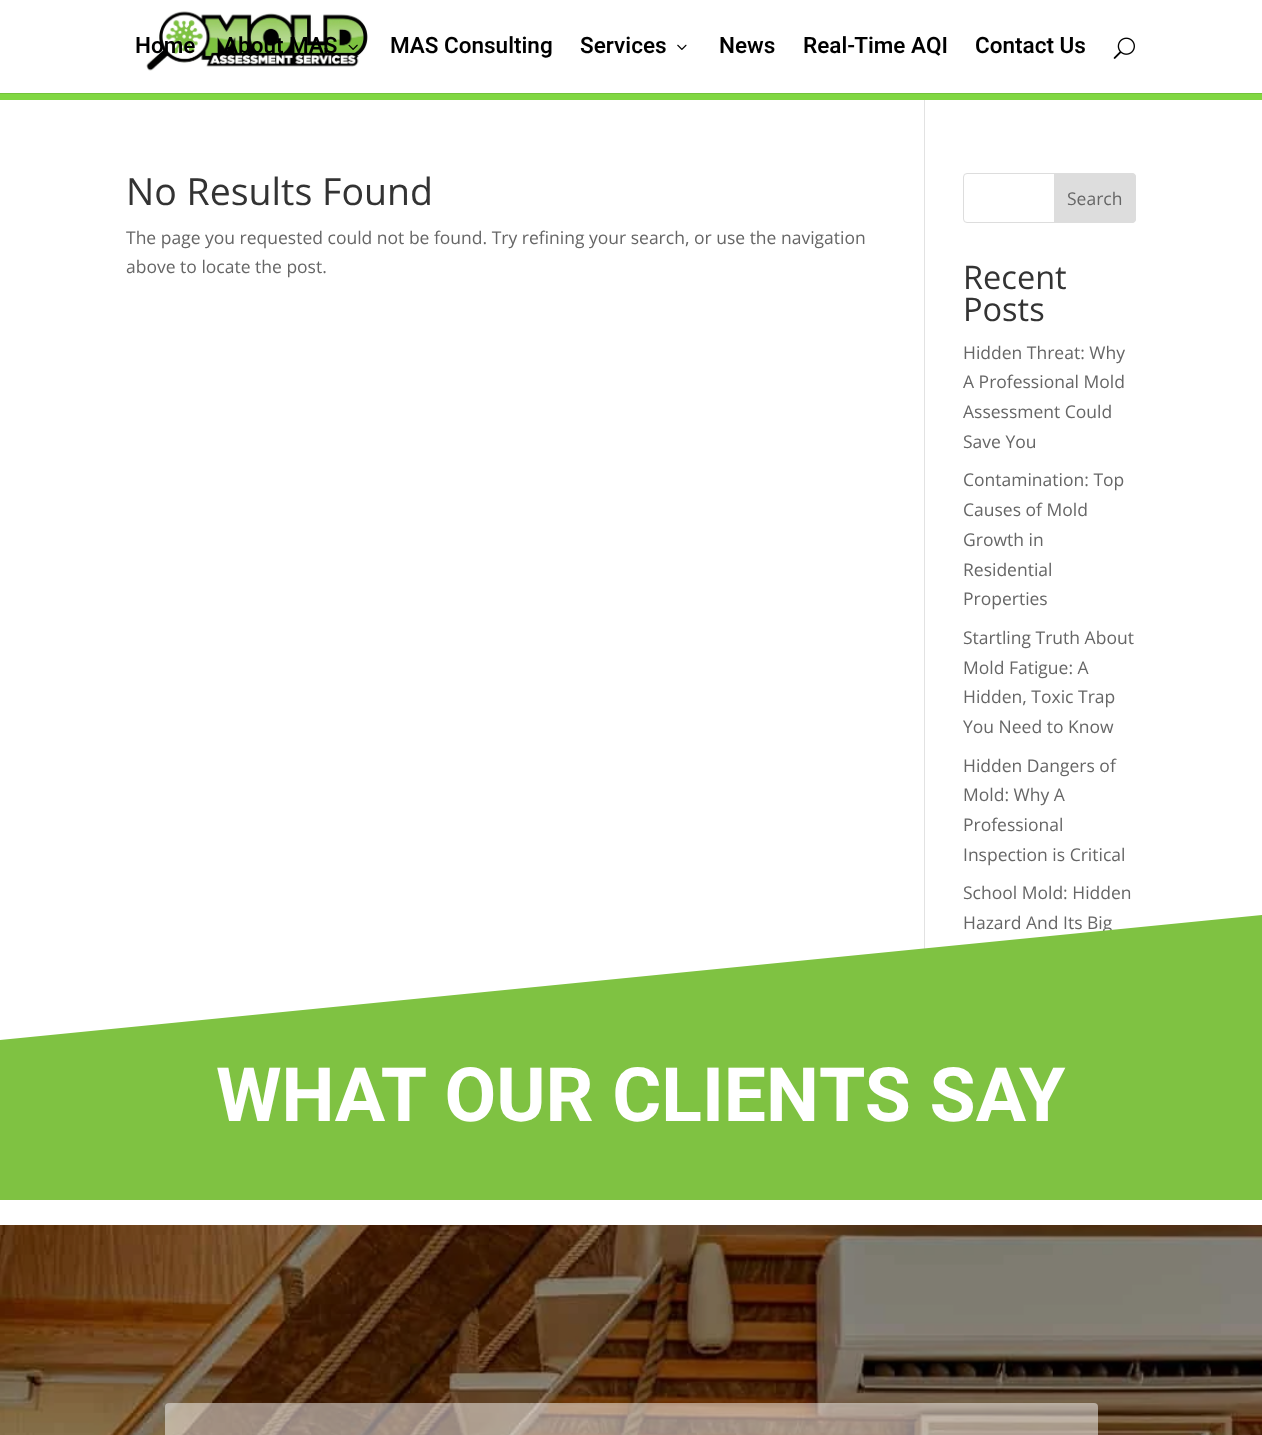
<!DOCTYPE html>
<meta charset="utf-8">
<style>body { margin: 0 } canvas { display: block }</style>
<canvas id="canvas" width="1262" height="1435"></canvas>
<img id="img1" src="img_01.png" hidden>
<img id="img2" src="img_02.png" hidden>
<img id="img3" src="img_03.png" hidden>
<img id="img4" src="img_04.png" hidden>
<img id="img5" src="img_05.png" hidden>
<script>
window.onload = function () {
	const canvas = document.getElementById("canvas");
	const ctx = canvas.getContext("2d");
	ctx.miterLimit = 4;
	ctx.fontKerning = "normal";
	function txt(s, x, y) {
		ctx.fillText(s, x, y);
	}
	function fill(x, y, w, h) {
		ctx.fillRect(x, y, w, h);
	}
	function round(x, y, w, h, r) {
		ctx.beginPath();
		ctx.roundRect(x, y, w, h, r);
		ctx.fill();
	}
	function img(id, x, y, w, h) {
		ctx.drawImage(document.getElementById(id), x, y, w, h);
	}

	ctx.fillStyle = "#81D742";
	fill(0, 0, 1262, 1435);
	ctx.fillStyle = "#74C23B";
	ctx.beginPath();
	ctx.moveTo(0, 92);
	ctx.lineTo(0, 94);
	ctx.lineTo(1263, 94);
	ctx.lineTo(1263, 1);
	ctx.lineTo(1262, 1);
	ctx.lineTo(1262, 92);
	ctx.closePath();
	ctx.fill();
	ctx.fillStyle = "#FFFFFF";
	fill(0, 0, 1262, 93);
	img("img1", 146, 11, 222, 60);
	img("img2", 348, 44, 10, 6);
	img("img3", 677, 44, 10, 6);
	img("img4", 1113, 37, 22, 22);
	fill(0, 100, 1262, 940);
	ctx.fillStyle = "#E2E2E2";
	fill(924, 100, 1, 849);
	ctx.beginPath();
	ctx.roundRect(963.5, 173.5, 172, 49, 3.5);
	ctx.strokeStyle = "#DDDDDD";
	ctx.stroke();
	ctx.fillStyle = "#DDDDDD";
	ctx.beginPath();
	ctx.roundRect(1054.5, 173.5, 81, 49, [0, 3.5, 3.5, 0]);
	ctx.fill();
	ctx.stroke();
	ctx.fillStyle = "#7FC242";
	fill(0, 1040, 1262, 160);
	ctx.fillStyle = "#FFFFFF";
	fill(0, 1200, 1262, 25);
	img("img5", 0, 1225, 1262, 210);
	ctx.fillStyle = "rgba(255, 255, 255, 0.5)";
	round(165, 1403, 933, 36, 4);
	ctx.font = "600 22.5px Heebo";
	ctx.fillStyle = "#000000";
	txt("Home", 135, 53);
	txt("About MAS", 223, 53);
	txt("MAS Consulting", 390, 53);
	txt("Services", 580, 53);
	txt("News", 719, 53);
	txt("Real-Time AQI", 803, 53);
	txt("Contact Us", 975, 53);
	ctx.font = "37.5px Open Sans";
	ctx.fillStyle = "#333333";
	txt("No Results Found", 126, 205);
	ctx.font = "17.5px Open Sans";
	ctx.fillStyle = "#666666";
	txt("The page you requested could not be found. Try refining your search, or use the navigation", 126, 244);
	txt("above to locate the post.", 126, 273);
	txt("Search", 1067, 205);
	ctx.font = "32.5px Open Sans";
	ctx.fillStyle = "#333333";
	txt("Recent", 963, 289);
	txt("Posts", 963, 321);
	ctx.font = "17.5px Open Sans";
	ctx.fillStyle = "#666666";
	txt("Hidden Threat: Why", 963, 359);
	txt("A Professional Mold", 963, 388);
	txt("Assessment Could", 963, 418);
	txt("Save You", 963, 448);
	txt("Contamination: Top", 963, 486);
	txt("Causes of Mold", 963, 516);
	txt("Growth in", 963, 546);
	txt("Residential", 963, 576);
	txt("Properties", 963, 605);
	txt("Startling Truth About", 963, 644);
	txt("Mold Fatigue: A", 963, 674);
	txt("Hidden, Toxic Trap", 963, 703);
	txt("You Need to Know", 963, 733);
	txt("Hidden Dangers of", 963, 772);
	txt("Mold: Why A", 963, 801);
	txt("Professional", 963, 831);
	txt("Inspection is Critical", 963, 861);
	txt("School Mold: Hidden", 963, 899);
	txt("Hazard And Its Big", 963, 929);
	ctx.fillStyle = "#7FC242";
	ctx.beginPath();
	ctx.moveTo(1262, 915);
	ctx.lineTo(1262, 1040);
	ctx.lineTo(0, 1040);
	ctx.closePath();
	ctx.fill();
	ctx.font = "bold 75px Heebo";
	ctx.fillStyle = "#FFFFFF";
	txt("WHAT OUR CLIENTS SAY", 216, 1121);
};
</script>
